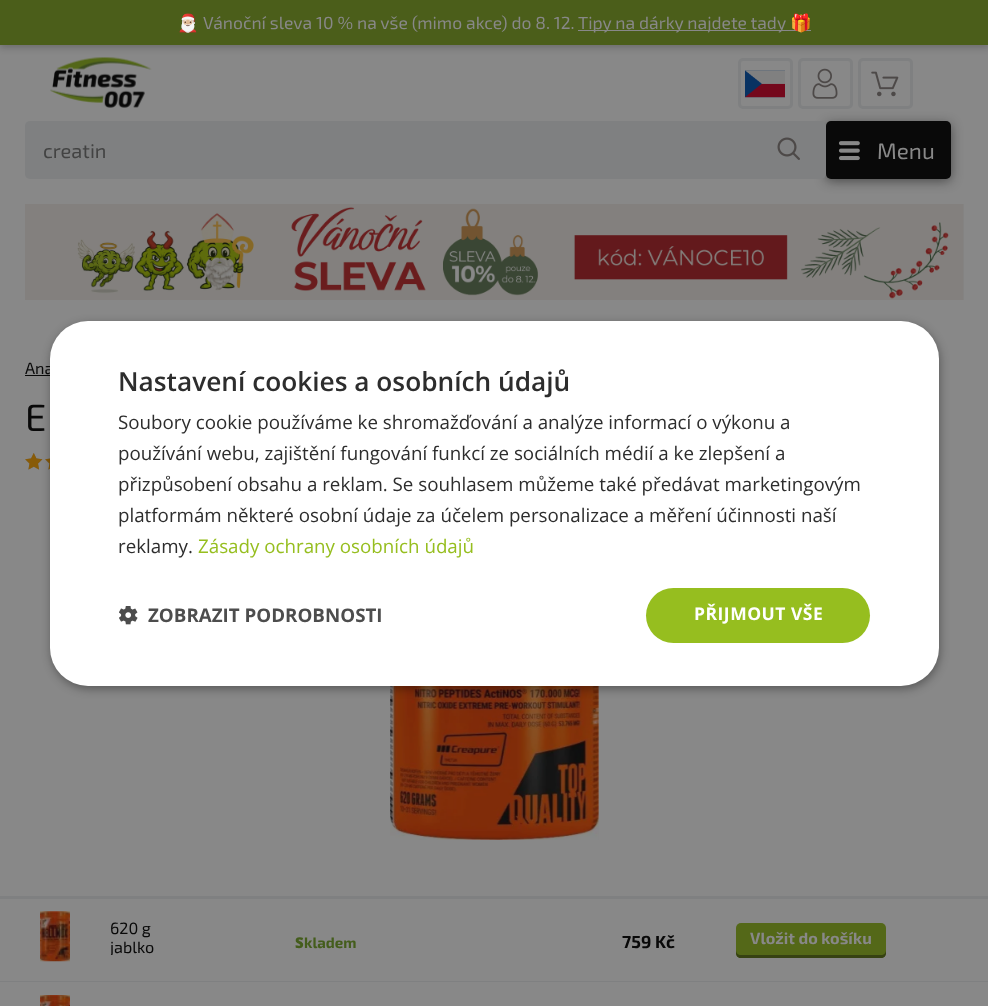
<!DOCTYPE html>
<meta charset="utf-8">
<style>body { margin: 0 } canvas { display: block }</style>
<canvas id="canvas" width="988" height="1006"></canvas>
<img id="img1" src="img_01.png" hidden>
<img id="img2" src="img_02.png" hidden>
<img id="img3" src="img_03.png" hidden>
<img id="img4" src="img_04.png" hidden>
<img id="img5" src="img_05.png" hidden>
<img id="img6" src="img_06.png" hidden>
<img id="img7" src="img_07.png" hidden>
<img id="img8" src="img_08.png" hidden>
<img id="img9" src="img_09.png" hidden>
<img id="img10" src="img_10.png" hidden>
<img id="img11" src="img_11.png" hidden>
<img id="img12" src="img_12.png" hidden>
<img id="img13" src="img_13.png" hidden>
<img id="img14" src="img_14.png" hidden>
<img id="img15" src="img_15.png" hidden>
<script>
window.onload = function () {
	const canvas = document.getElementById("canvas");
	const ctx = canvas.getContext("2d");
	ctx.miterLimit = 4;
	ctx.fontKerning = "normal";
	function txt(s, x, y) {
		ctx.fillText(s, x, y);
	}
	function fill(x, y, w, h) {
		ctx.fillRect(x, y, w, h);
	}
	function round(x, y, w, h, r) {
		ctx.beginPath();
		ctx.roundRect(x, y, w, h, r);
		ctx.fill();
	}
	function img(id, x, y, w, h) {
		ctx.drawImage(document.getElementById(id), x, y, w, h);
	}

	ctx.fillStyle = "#888888";
	fill(0, 0, 988, 1006);
	img("img1", 50, 57, 102, 51);
	ctx.fillStyle = "rgba(9, 9, 9, 0.2)";
	ctx.filter = "blur(3px)";
	ctx.beginPath();
	ctx.rect(0, 3, 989, 45);
	ctx.fill();
	ctx.filter = "none";
	ctx.fillStyle = "#4B5E1A";
	fill(0, 0, 988, 45);
	ctx.fillStyle = "#888888";
	fill(578, 30, 233, 1);
	ctx.beginPath();
	ctx.roundRect(739.5, 59.5, 52, 48, 3.5);
	ctx.strokeStyle = "#7F8081";
	ctx.lineWidth = 3;
	ctx.stroke();
	img("img2", 745, 70, 40, 28);
	ctx.beginPath();
	ctx.roundRect(799.5, 59.5, 52, 48, 3.5);
	ctx.stroke();
	img("img3", 812, 68, 26, 31);
	ctx.fillStyle = "rgba(9, 9, 9, 0.5)";
	ctx.filter = "blur(6px)";
	ctx.beginPath();
	ctx.roundRect(826, 124, 125, 57, 5);
	ctx.fill();
	ctx.filter = "none";
	ctx.beginPath();
	ctx.roundRect(859.5, 59.5, 52, 48, 3.5);
	ctx.stroke();
	img("img4", 871, 71, 28, 26);
	ctx.fillStyle = "#7F8081";
	round(25, 121, 801, 58, 5);
	img("img5", 777, 137, 23, 23);
	ctx.fillStyle = "#090909";
	round(826, 121, 125, 58, 5);
	img("img6", 838, 141, 22, 20);
	img("img7", 25, 204, 939, 96);
	fill(25, 375, 25, 1);
	img("img8", 25, 453, 18, 17);
	img("img9", 45, 458, 5, 12);
	img("img10", 25, 453, 18, 17);
	img("img11", 45, 458, 5, 12);
	img("img12", 390, 686, 209, 154);
	ctx.fillStyle = "#7F8081";
	fill(0, 896, 988, 3);
	img("img13", 40, 911, 30, 51);
	fill(0, 981, 988, 1);
	ctx.fillStyle = "#546818";
	round(736, 923, 150, 35, 5);
	ctx.fillStyle = "#364212";
	ctx.beginPath();
	ctx.moveTo(736, 950);
	ctx.lineTo(736, 953);
	ctx.bezierCurveTo(736, 956, 738, 958, 741, 958);
	ctx.lineTo(881, 958);
	ctx.bezierCurveTo(884, 958, 886, 956, 886, 953);
	ctx.lineTo(886, 950);
	ctx.bezierCurveTo(886, 953, 884, 955, 881, 955);
	ctx.lineTo(741, 955);
	ctx.bezierCurveTo(738, 955, 736, 953, 736, 950);
	ctx.closePath();
	ctx.fill();
	img("img14", 40, 995, 30, 11);
	ctx.fillStyle = "rgba(0, 0, 0, 0.35)";
	ctx.filter = "blur(5px)";
	ctx.beginPath();
	ctx.roundRect(51, 324, 889, 365, 38);
	ctx.fill();
	ctx.filter = "none";
	ctx.font = "17.5px Noto Color Emoji";
	ctx.fillStyle = "#888888";
	txt("🎅🏼", 177, 29);
	ctx.font = "17.5px 'Exo 2'";
	txt("Vánoční sleva 10 % na vše (mimo akce) do 8. 12.", 203, 29);
	txt("Tipy na dárky najdete tady", 578, 29);
	ctx.font = "17.5px Noto Color Emoji";
	txt("🎁", 790, 29);
	ctx.font = "20px 'Exo 2'";
	ctx.fillStyle = "#434343";
	txt("creatin", 43, 158);
	ctx.font = "22.5px 'Exo 2'";
	ctx.fillStyle = "#888888";
	txt("Menu", 877, 159);
	ctx.font = "16.25px 'Exo 2'";
	ctx.fillStyle = "#090909";
	txt("Ana", 25, 374);
	ctx.font = "38px 'Exo 2'";
	txt("E", 25, 431);
	ctx.font = "16.25px 'Exo 2'";
	txt("620 g", 110, 934);
	ctx.save();
	ctx.beginPath();
	ctx.rect(110, 918, 108, 37);
	ctx.clip();
	txt("jablko", 110, 953);
	ctx.restore();
	ctx.font = "900 15px Noto Sans";
	ctx.fillStyle = "#445D1C";
	txt("S", 295, 948);
	ctx.font = "bold 15px 'Exo 2'";
	txt("kladem", 304, 948);
	ctx.font = "bold 17.5px 'Exo 2'";
	ctx.fillStyle = "#090909";
	txt("759 Kč", 622, 948);
	ctx.font = "bold 16.25px 'Exo 2'";
	ctx.fillStyle = "#888888";
	txt("Vložit do košíku", 750, 944);
	ctx.fillStyle = "#FFFFFF";
	round(50, 321, 889, 365, 38);
	ctx.font = "600 26.25px Open Sans";
	ctx.fillStyle = "#2D2D2D";
	txt("Nastavení cookies a osobních údajů", 118, 391);
	ctx.font = "18.75px Open Sans";
	txt("Soubory cookie používáme ke shromažďování a analýze informací o výkonu a", 118, 429);
	txt("používání webu, zajištění fungování funkcí ze sociálních médií a ke zlepšení a", 118, 460);
	txt("přizpůsobení obsahu a reklam. Se souhlasem můžeme také předávat marketingovým", 118, 491);
	txt("platformám některé osobní údaje za účelem personalizace a měření účinnosti naší", 118, 522);
	txt("reklamy.", 118, 553);
	ctx.fillStyle = "#96BE1F";
	txt("Zásady ochrany osobních údajů", 198, 553);
	img("img15", 119, 606, 19, 19);
	ctx.font = "bold 18.75px Open Sans";
	ctx.fillStyle = "#4D4D4D";
	txt("ZOBRAZIT PODROBNOSTI", 148, 622);
	ctx.fillStyle = "#96BE1F";
	round(646, 588, 224, 55, 27.5);
	ctx.letterSpacing = "0.5px";
	ctx.font = "bold 17.5px Open Sans";
	ctx.fillStyle = "#FFFFFF";
	txt("PŘIJMOUT VŠE", 694, 620);
};
</script>
